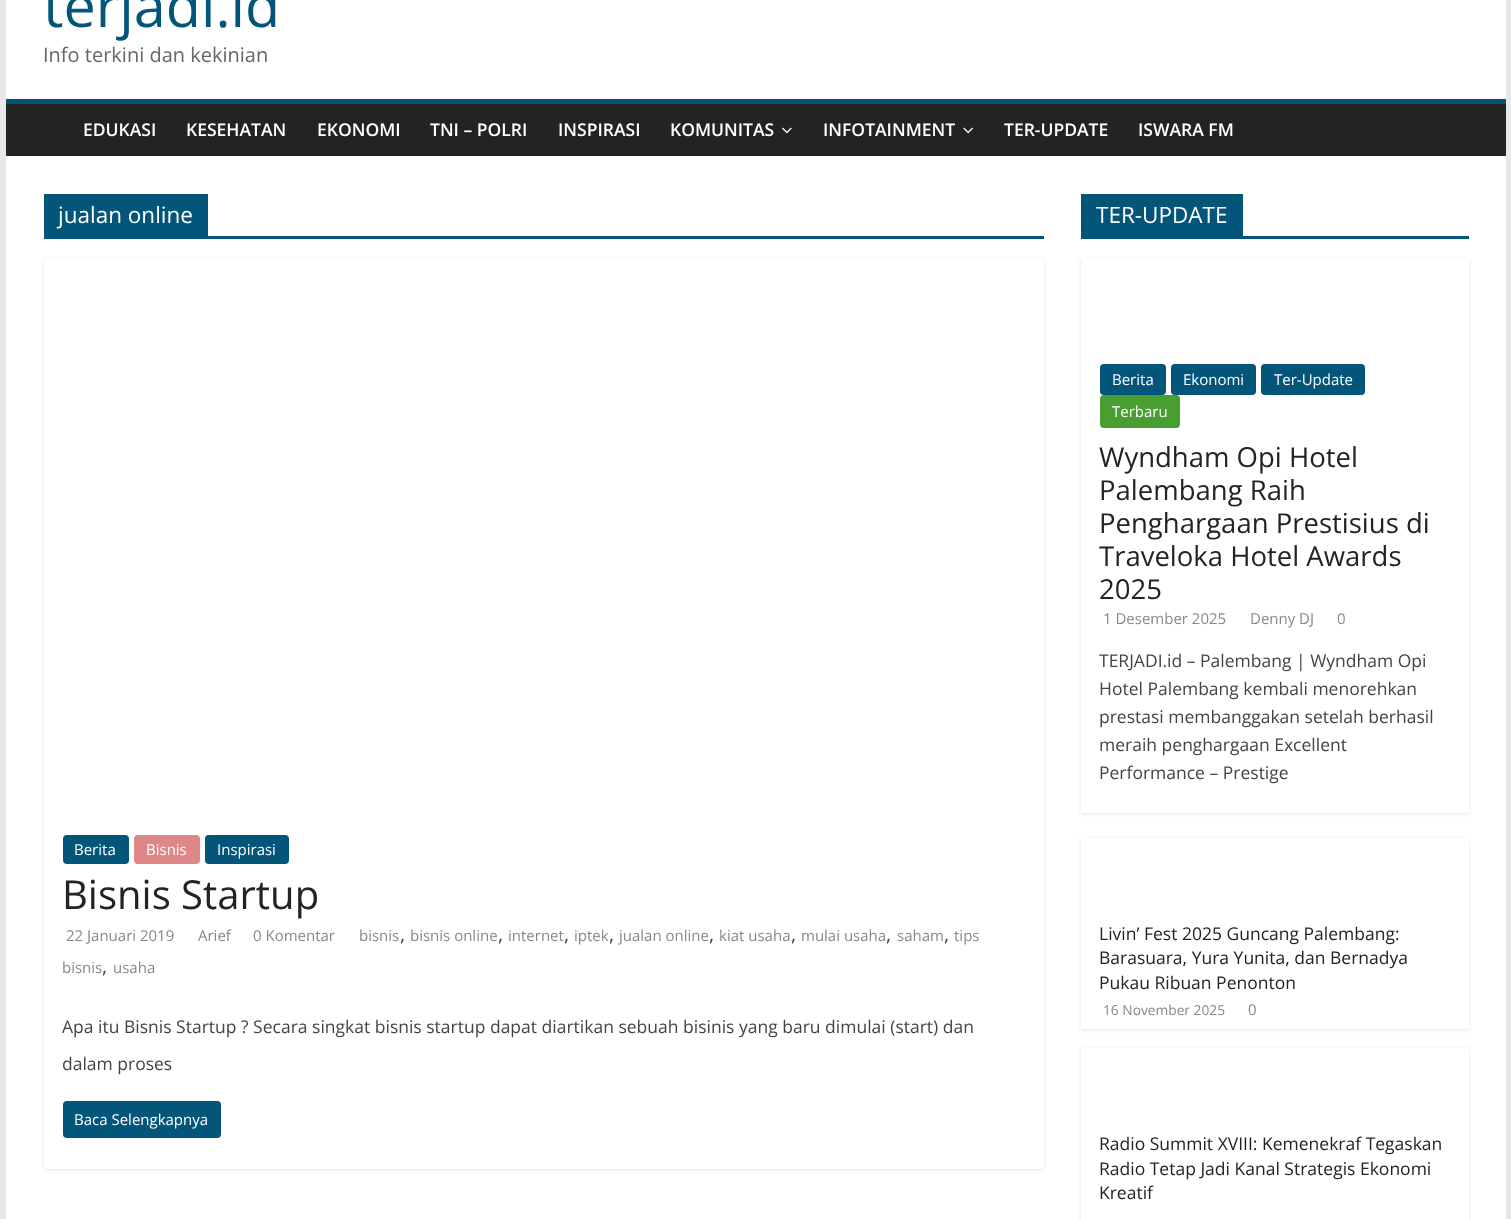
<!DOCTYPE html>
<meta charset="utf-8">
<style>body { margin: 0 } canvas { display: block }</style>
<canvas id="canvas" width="1511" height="1219"></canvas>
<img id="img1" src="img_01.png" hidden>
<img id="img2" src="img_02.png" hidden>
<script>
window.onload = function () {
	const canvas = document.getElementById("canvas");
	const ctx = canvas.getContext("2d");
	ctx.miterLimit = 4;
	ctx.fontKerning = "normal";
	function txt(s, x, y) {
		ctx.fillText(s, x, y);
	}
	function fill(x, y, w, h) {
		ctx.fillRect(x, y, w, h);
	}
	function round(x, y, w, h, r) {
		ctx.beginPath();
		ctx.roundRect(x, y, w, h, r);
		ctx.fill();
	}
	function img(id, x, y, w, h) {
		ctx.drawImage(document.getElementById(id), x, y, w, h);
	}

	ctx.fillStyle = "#E8E8E8";
	fill(0, 0, 1511, 1219);
	ctx.fillStyle = "#FFFFFF";
	fill(6, 0, 1500, 99);
	ctx.fillStyle = "#232323";
	fill(6, 104, 1500, 52);
	ctx.fillStyle = "#03567A";
	fill(6, 99, 1500, 5);
	img("img1", 782, 127, 10, 7);
	img("img2", 963, 127, 10, 7);
	ctx.fillStyle = "#FFFFFF";
	fill(6, 156, 1500, 1063);
	ctx.fillStyle = "#03567A";
	fill(44, 236, 1000, 3);
	fill(44, 194, 164, 42);
	ctx.save();
	ctx.beginPath();
	ctx.moveTo(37, 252);
	ctx.lineTo(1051, 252);
	ctx.lineTo(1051, 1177);
	ctx.lineTo(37, 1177);
	ctx.closePath();
	ctx.moveTo(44, 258);
	ctx.lineTo(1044, 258);
	ctx.lineTo(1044, 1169);
	ctx.lineTo(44, 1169);
	ctx.closePath();
	ctx.clip("evenodd");
	ctx.fillStyle = "rgba(0, 0, 0, 0.1)";
	ctx.filter = "blur(2px)";
	ctx.beginPath();
	ctx.rect(44, 259, 1000, 911);
	ctx.fill();
	ctx.filter = "none";
	ctx.restore();
	round(63, 835, 66, 29, 4);
	ctx.fillStyle = "#DD8787";
	round(134, 835, 66, 29, 4);
	ctx.fillStyle = "#03567A";
	round(205, 835, 84, 29, 4);
	round(63, 1101, 158, 37, 4);
	fill(1081, 236, 388, 3);
	fill(1081, 194, 162, 42);
	ctx.fillStyle = "rgba(0, 0, 0, 0.1)";
	ctx.filter = "blur(2px)";
	ctx.beginPath();
	ctx.rect(1081, 259, 388, 555);
	ctx.fill();
	ctx.filter = "none";
	ctx.fillStyle = "#FFFFFF";
	fill(1081, 258, 388, 555);
	ctx.fillStyle = "#03567A";
	round(1100, 364, 66, 31, 4);
	round(1171, 364, 85, 31, 4);
	round(1261, 364, 104, 31, 4);
	ctx.fillStyle = "#489E31";
	round(1100, 395, 80, 33, 4);
	ctx.fillStyle = "rgba(0, 0, 0, 0.1)";
	ctx.filter = "blur(2px)";
	ctx.beginPath();
	ctx.rect(1081, 839, 388, 191);
	ctx.fill();
	ctx.filter = "none";
	ctx.fillStyle = "#FFFFFF";
	fill(1081, 838, 388, 191);
	ctx.fillStyle = "rgba(0, 0, 0, 0.1)";
	ctx.filter = "blur(2px)";
	ctx.beginPath();
	ctx.rect(1081, 1049, 388, 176);
	ctx.fill();
	ctx.filter = "none";
	ctx.fillStyle = "#FFFFFF";
	fill(1081, 1048, 388, 171);
	ctx.font = "57.5px Open Sans";
	ctx.fillStyle = "#03567A";
	txt("terjadi.id", 43, 27);
	ctx.font = "20px Open Sans";
	ctx.fillStyle = "#666666";
	txt("Info terkini dan kekinian", 43, 62);
	ctx.font = "600 17.5px Open Sans";
	ctx.fillStyle = "#FFFFFF";
	txt("EDUKASI", 83, 136);
	txt("KESEHATAN", 186, 136);
	txt("EKONOMI", 317, 136);
	txt("TNI – POLRI", 430, 136);
	txt("INSPIRASI", 558, 136);
	txt("KOMUNITAS", 670, 136);
	txt("INFOTAINMENT", 823, 136);
	txt("TER-UPDATE", 1004, 136);
	txt("ISWARA FM", 1138, 136);
	ctx.font = "22.5px Open Sans";
	txt("jualan online", 58, 223);
	ctx.font = "15px Open Sans";
	txt("Berita", 74, 855);
	txt("Bisnis", 146, 855);
	txt("Inspirasi", 217, 855);
	ctx.font = "40px Open Sans";
	ctx.fillStyle = "#232323";
	txt("Bisnis Startup", 62, 909);
	ctx.font = "15px Open Sans";
	ctx.fillStyle = "#888888";
	txt("22 Januari 2019", 66, 941);
	txt("Arief", 198, 941);
	txt("0 Komentar", 253, 941);
	txt("bisnis", 359, 941);
	ctx.font = "20px Open Sans";
	ctx.fillStyle = "#444444";
	txt(",", 400, 941);
	ctx.font = "15px Open Sans";
	ctx.fillStyle = "#888888";
	txt("bisnis online", 410, 941);
	ctx.font = "20px Open Sans";
	ctx.fillStyle = "#444444";
	txt(",", 498, 941);
	ctx.font = "15px Open Sans";
	ctx.fillStyle = "#888888";
	txt("internet", 508, 941);
	ctx.font = "20px Open Sans";
	ctx.fillStyle = "#444444";
	txt(",", 564, 941);
	ctx.font = "15px Open Sans";
	ctx.fillStyle = "#888888";
	txt("iptek", 574, 941);
	ctx.font = "20px Open Sans";
	ctx.fillStyle = "#444444";
	txt(",", 609, 941);
	ctx.font = "15px Open Sans";
	ctx.fillStyle = "#888888";
	txt("jualan online", 619, 941);
	ctx.font = "20px Open Sans";
	ctx.fillStyle = "#444444";
	txt(",", 709, 941);
	ctx.font = "15px Open Sans";
	ctx.fillStyle = "#888888";
	txt("kiat usaha", 719, 941);
	ctx.font = "20px Open Sans";
	ctx.fillStyle = "#444444";
	txt(",", 791, 941);
	ctx.font = "15px Open Sans";
	ctx.fillStyle = "#888888";
	txt("mulai usaha", 801, 941);
	ctx.font = "20px Open Sans";
	ctx.fillStyle = "#444444";
	txt(",", 886, 941);
	ctx.font = "15px Open Sans";
	ctx.fillStyle = "#888888";
	txt("saham", 897, 941);
	ctx.font = "20px Open Sans";
	ctx.fillStyle = "#444444";
	txt(",", 944, 941);
	ctx.font = "15px Open Sans";
	ctx.fillStyle = "#888888";
	txt("tips", 954, 941);
	txt("bisnis", 62, 973);
	ctx.font = "20px Open Sans";
	ctx.fillStyle = "#444444";
	txt(",", 102, 973);
	ctx.font = "15px Open Sans";
	ctx.fillStyle = "#888888";
	txt("usaha", 113, 973);
	ctx.font = "17.5px Open Sans";
	ctx.fillStyle = "#444444";
	txt("Apa itu Bisnis Startup ? Secara singkat bisnis startup dapat diartikan sebuah bisinis yang baru dimulai (start) dan", 62, 1033);
	txt("dalam proses", 62, 1070);
	ctx.font = "15px Open Sans";
	ctx.fillStyle = "#FFFFFF";
	txt("Baca Selengkapnya", 74, 1125);
	ctx.font = "22.5px Open Sans";
	txt("TER-UPDATE", 1096, 223);
	ctx.font = "15px Open Sans";
	txt("Berita", 1112, 385);
	txt("Ekonomi", 1183, 385);
	txt("Ter-Update", 1274, 385);
	txt("Terbaru", 1112, 417);
	ctx.font = "27.5px Open Sans";
	ctx.fillStyle = "#232323";
	txt("Wyndham Opi Hotel", 1099, 467);
	txt("Palembang Raih", 1099, 500);
	txt("Penghargaan Prestisius di", 1099, 533);
	txt("Traveloka Hotel Awards", 1099, 566);
	txt("2025", 1099, 599);
	ctx.font = "15px Open Sans";
	ctx.fillStyle = "#888888";
	txt("1 Desember 2025", 1103, 624);
	txt("Denny DJ", 1250, 624);
	txt("0", 1337, 624);
	ctx.font = "17.5px Open Sans";
	ctx.fillStyle = "#444444";
	txt("TERJADI.id – Palembang | Wyndham Opi", 1099, 667);
	txt("Hotel Palembang kembali menorehkan", 1099, 695);
	txt("prestasi membanggakan setelah berhasil", 1099, 723);
	txt("meraih penghargaan Excellent", 1099, 751);
	txt("Performance – Prestige", 1099, 779);
	ctx.fillStyle = "#232323";
	txt("Livin’ Fest 2025 Guncang Palembang:", 1099, 940);
	txt("Barasuara, Yura Yunita, dan Bernadya", 1099, 964);
	txt("Pukau Ribuan Penonton", 1099, 989);
	ctx.font = "13.75px Open Sans";
	ctx.fillStyle = "#888888";
	txt("16 November 2025", 1103, 1015);
	ctx.font = "15px Open Sans";
	txt("0", 1248, 1015);
	ctx.font = "17.5px Open Sans";
	ctx.fillStyle = "#232323";
	txt("Radio Summit XVIII: Kemenekraf Tegaskan", 1099, 1150);
	txt("Radio Tetap Jadi Kanal Strategis Ekonomi", 1099, 1175);
	txt("Kreatif", 1099, 1199);
};
</script>
